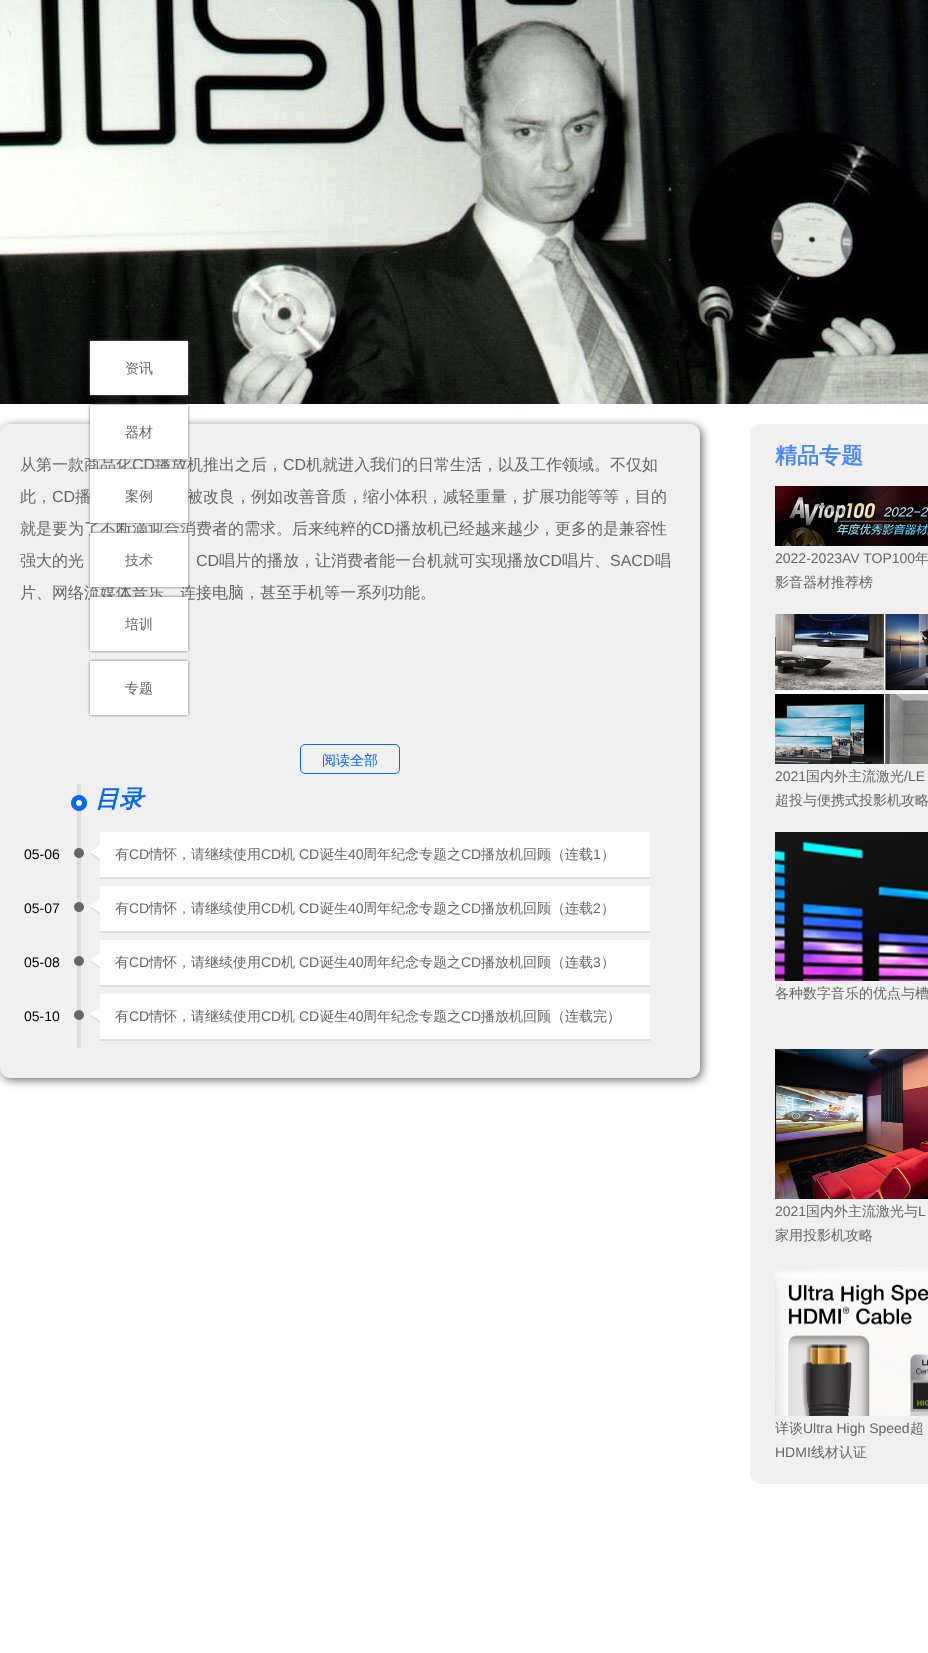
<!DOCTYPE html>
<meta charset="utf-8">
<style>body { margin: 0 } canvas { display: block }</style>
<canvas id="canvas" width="928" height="1653"></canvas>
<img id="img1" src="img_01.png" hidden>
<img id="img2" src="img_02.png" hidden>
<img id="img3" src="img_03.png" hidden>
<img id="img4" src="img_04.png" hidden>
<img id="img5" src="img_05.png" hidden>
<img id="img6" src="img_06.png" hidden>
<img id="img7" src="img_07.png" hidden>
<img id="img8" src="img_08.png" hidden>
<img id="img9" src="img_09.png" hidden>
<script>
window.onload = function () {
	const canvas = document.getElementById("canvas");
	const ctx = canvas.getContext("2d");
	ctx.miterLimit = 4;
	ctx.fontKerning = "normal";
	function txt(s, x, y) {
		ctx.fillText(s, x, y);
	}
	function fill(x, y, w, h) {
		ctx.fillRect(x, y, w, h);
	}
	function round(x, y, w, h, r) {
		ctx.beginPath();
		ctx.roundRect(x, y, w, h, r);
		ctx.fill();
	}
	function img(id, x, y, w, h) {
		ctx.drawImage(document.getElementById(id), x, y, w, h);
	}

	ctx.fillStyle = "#FFFFFF";
	fill(0, 0, 928, 1653);
	img("img1", 0, 0, 928, 404);
	ctx.fillStyle = "#666666";
	ctx.filter = "blur(1.5px)";
	ctx.beginPath();
	ctx.rect(90, 341, 98, 54);
	ctx.fill();
	ctx.filter = "none";
	ctx.fillStyle = "#FFFFFF";
	fill(90, 341, 98, 54);
	ctx.fillStyle = "#666666";
	ctx.filter = "blur(5px)";
	ctx.beginPath();
	ctx.roundRect(2, 426, 700, 654, 10);
	ctx.fill();
	ctx.filter = "none";
	ctx.fillStyle = "#F0F0F0";
	round(0, 424, 700, 654, 10);
	ctx.fillStyle = "#666666";
	ctx.filter = "blur(1.5px)";
	ctx.beginPath();
	ctx.rect(90, 405, 98, 54);
	ctx.fill();
	ctx.filter = "none";
	ctx.filter = "blur(1.5px)";
	ctx.beginPath();
	ctx.rect(90, 469, 98, 54);
	ctx.fill();
	ctx.filter = "none";
	ctx.filter = "blur(1.5px)";
	ctx.beginPath();
	ctx.rect(90, 533, 98, 54);
	ctx.fill();
	ctx.filter = "none";
	ctx.filter = "blur(1.5px)";
	ctx.beginPath();
	ctx.rect(90, 597, 98, 54);
	ctx.fill();
	ctx.filter = "none";
	ctx.filter = "blur(1.5px)";
	ctx.beginPath();
	ctx.rect(90, 661, 98, 54);
	ctx.fill();
	ctx.filter = "none";
	ctx.fillStyle = "#FFFFFF";
	fill(90, 661, 98, 54);
	ctx.beginPath();
	ctx.roundRect(300.5, 744.5, 99, 29, 4.5);
	ctx.strokeStyle = "#0066FF";
	ctx.stroke();
	ctx.fillStyle = "#DDDDDD";
	fill(77, 784, 4, 264);
	img("img2", 71, 795, 16, 16);
	img("img3", 74, 848, 10, 10);
	img("img4", 90, 845, 10, 16);
	ctx.fillStyle = "#FFFFFF";
	fill(100, 832, 550, 45);
	ctx.fillStyle = "#DDDDDD";
	fill(100, 877, 550, 2);
	img("img3", 74, 902, 10, 10);
	img("img4", 90, 899, 10, 16);
	ctx.fillStyle = "#FFFFFF";
	fill(100, 886, 550, 45);
	ctx.fillStyle = "#DDDDDD";
	fill(100, 931, 550, 2);
	img("img3", 74, 956, 10, 10);
	img("img4", 90, 953, 10, 16);
	ctx.fillStyle = "#FFFFFF";
	fill(100, 940, 550, 45);
	ctx.fillStyle = "#DDDDDD";
	fill(100, 985, 550, 2);
	img("img3", 74, 1010, 10, 10);
	img("img4", 90, 1007, 10, 16);
	ctx.fillStyle = "#FFFFFF";
	fill(100, 994, 550, 45);
	ctx.fillStyle = "#DDDDDD";
	fill(100, 1039, 550, 2);
	ctx.fillStyle = "#F0F0F0";
	round(750, 424, 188, 1060, 10);
	img("img5", 775, 486, 153, 60);
	img("img6", 775, 614, 153, 150);
	img("img7", 775, 832, 153, 149);
	img("img8", 775, 1049, 153, 150);
	img("img9", 775, 1267, 153, 149);
	ctx.font = "500 14px WenQuanYi Zen Hei";
	ctx.fillStyle = "#666666";
	txt("资讯", 125, 373);
	txt("专题", 125, 693);
	ctx.font = "500 16px WenQuanYi Zen Hei";
	txt("从第一款商品化", 20, 470);
	ctx.font = "16px Liberation Sans";
	txt("CD", 132, 470);
	ctx.font = "500 16px WenQuanYi Zen Hei";
	txt("播放机推出之后，", 155, 470);
	ctx.fillStyle = "#FFFFFF";
	fill(90, 405, 98, 54);
	ctx.font = "500 14px WenQuanYi Zen Hei";
	ctx.fillStyle = "#666666";
	txt("器材", 125, 437);
	ctx.font = "16px Liberation Sans";
	txt("CD", 283, 470);
	ctx.font = "500 16px WenQuanYi Zen Hei";
	txt("机就进入我们的日常生活，以及工作领域。不仅如", 306, 470);
	txt("此，", 20, 502);
	ctx.font = "16px Liberation Sans";
	txt("CD", 52, 502);
	ctx.font = "500 16px WenQuanYi Zen Hei";
	txt("播", 75, 502);
	txt("被改良，例如改善音质，缩小体积，减轻重量，扩展功能等等，目的", 187, 502);
	txt("就是要为了不断滴迎合消费者的需求。后来纯粹的", 20, 534);
	ctx.fillStyle = "#FFFFFF";
	fill(90, 469, 98, 54);
	ctx.font = "500 14px WenQuanYi Zen Hei";
	ctx.fillStyle = "#666666";
	txt("案例", 125, 501);
	ctx.font = "16px Liberation Sans";
	txt("CD", 372, 534);
	ctx.font = "500 16px WenQuanYi Zen Hei";
	txt("播放机已经越来越少，更多的是兼容性", 395, 534);
	txt("强大的光", 20, 566);
	ctx.font = "16px Liberation Sans";
	txt("CD", 196, 566);
	ctx.font = "500 16px WenQuanYi Zen Hei";
	txt("唱片的播放，让消费者能一台机就可实现播放", 219, 566);
	ctx.font = "16px Liberation Sans";
	txt("CD", 539, 566);
	ctx.font = "500 16px WenQuanYi Zen Hei";
	txt("唱片、", 562, 566);
	ctx.font = "16px Liberation Sans";
	txt("SACD", 610, 566);
	ctx.font = "500 16px WenQuanYi Zen Hei";
	txt("唱", 655, 566);
	txt("片、网络流媒体音乐、连接电脑，甚至手机等一系列功能。", 20, 598);
	ctx.fillStyle = "#FFFFFF";
	fill(90, 597, 98, 54);
	ctx.font = "500 14px WenQuanYi Zen Hei";
	ctx.fillStyle = "#666666";
	txt("培训", 125, 629);
	ctx.fillStyle = "#FFFFFF";
	fill(90, 533, 98, 54);
	ctx.fillStyle = "#666666";
	txt("技术", 125, 565);
	ctx.fillStyle = "#0066FF";
	txt("阅读全部", 322, 765);
	ctx.font = "italic bold 24px WenQuanYi Zen Hei";
	txt("目录", 95, 807);
	ctx.font = "14px Liberation Sans";
	ctx.fillStyle = "#000000";
	txt("05-06", 24, 859);
	ctx.font = "500 14px WenQuanYi Zen Hei";
	ctx.fillStyle = "#666666";
	txt("有", 115, 859);
	ctx.font = "14px Liberation Sans";
	txt("CD", 129, 859);
	ctx.font = "500 14px WenQuanYi Zen Hei";
	txt("情怀，请继续使用", 149, 859);
	ctx.font = "14px Liberation Sans";
	txt("CD", 261, 859);
	ctx.font = "500 14px WenQuanYi Zen Hei";
	txt("机", 281, 859);
	ctx.font = "14px Liberation Sans";
	txt("CD", 299, 859);
	ctx.font = "500 14px WenQuanYi Zen Hei";
	txt("诞生", 320, 859);
	ctx.font = "14px Liberation Sans";
	txt("40", 348, 859);
	ctx.font = "500 14px WenQuanYi Zen Hei";
	txt("周年纪念专题之", 363, 859);
	ctx.font = "14px Liberation Sans";
	txt("CD", 461, 859);
	ctx.font = "500 14px WenQuanYi Zen Hei";
	txt("播放机回顾（连载", 481, 859);
	ctx.font = "14px Liberation Sans";
	txt("1", 593, 859);
	ctx.font = "500 14px WenQuanYi Zen Hei";
	txt("）", 601, 859);
	ctx.font = "14px Liberation Sans";
	ctx.fillStyle = "#000000";
	txt("05-07", 24, 913);
	ctx.font = "500 14px WenQuanYi Zen Hei";
	ctx.fillStyle = "#666666";
	txt("有", 115, 913);
	ctx.font = "14px Liberation Sans";
	txt("CD", 129, 913);
	ctx.font = "500 14px WenQuanYi Zen Hei";
	txt("情怀，请继续使用", 149, 913);
	ctx.font = "14px Liberation Sans";
	txt("CD", 261, 913);
	ctx.font = "500 14px WenQuanYi Zen Hei";
	txt("机", 281, 913);
	ctx.font = "14px Liberation Sans";
	txt("CD", 299, 913);
	ctx.font = "500 14px WenQuanYi Zen Hei";
	txt("诞生", 320, 913);
	ctx.font = "14px Liberation Sans";
	txt("40", 348, 913);
	ctx.font = "500 14px WenQuanYi Zen Hei";
	txt("周年纪念专题之", 363, 913);
	ctx.font = "14px Liberation Sans";
	txt("CD", 461, 913);
	ctx.font = "500 14px WenQuanYi Zen Hei";
	txt("播放机回顾（连载", 481, 913);
	ctx.font = "14px Liberation Sans";
	txt("2", 593, 913);
	ctx.font = "500 14px WenQuanYi Zen Hei";
	txt("）", 601, 913);
	ctx.font = "14px Liberation Sans";
	ctx.fillStyle = "#000000";
	txt("05-08", 24, 967);
	ctx.font = "500 14px WenQuanYi Zen Hei";
	ctx.fillStyle = "#666666";
	txt("有", 115, 967);
	ctx.font = "14px Liberation Sans";
	txt("CD", 129, 967);
	ctx.font = "500 14px WenQuanYi Zen Hei";
	txt("情怀，请继续使用", 149, 967);
	ctx.font = "14px Liberation Sans";
	txt("CD", 261, 967);
	ctx.font = "500 14px WenQuanYi Zen Hei";
	txt("机", 281, 967);
	ctx.font = "14px Liberation Sans";
	txt("CD", 299, 967);
	ctx.font = "500 14px WenQuanYi Zen Hei";
	txt("诞生", 320, 967);
	ctx.font = "14px Liberation Sans";
	txt("40", 348, 967);
	ctx.font = "500 14px WenQuanYi Zen Hei";
	txt("周年纪念专题之", 363, 967);
	ctx.font = "14px Liberation Sans";
	txt("CD", 461, 967);
	ctx.font = "500 14px WenQuanYi Zen Hei";
	txt("播放机回顾（连载", 481, 967);
	ctx.font = "14px Liberation Sans";
	txt("3", 593, 967);
	ctx.font = "500 14px WenQuanYi Zen Hei";
	txt("）", 601, 967);
	ctx.font = "14px Liberation Sans";
	ctx.fillStyle = "#000000";
	txt("05-10", 24, 1021);
	ctx.font = "500 14px WenQuanYi Zen Hei";
	ctx.fillStyle = "#666666";
	txt("有", 115, 1021);
	ctx.font = "14px Liberation Sans";
	txt("CD", 129, 1021);
	ctx.font = "500 14px WenQuanYi Zen Hei";
	txt("情怀，请继续使用", 149, 1021);
	ctx.font = "14px Liberation Sans";
	txt("CD", 261, 1021);
	ctx.font = "500 14px WenQuanYi Zen Hei";
	txt("机", 281, 1021);
	ctx.font = "14px Liberation Sans";
	txt("CD", 299, 1021);
	ctx.font = "500 14px WenQuanYi Zen Hei";
	txt("诞生", 320, 1021);
	ctx.font = "14px Liberation Sans";
	txt("40", 348, 1021);
	ctx.font = "500 14px WenQuanYi Zen Hei";
	txt("周年纪念专题之", 363, 1021);
	ctx.font = "14px Liberation Sans";
	txt("CD", 461, 1021);
	ctx.font = "500 14px WenQuanYi Zen Hei";
	txt("播放机回顾（连载完）", 481, 1021);
	ctx.font = "bold 22px WenQuanYi Zen Hei";
	ctx.fillStyle = "#4889F3";
	txt("精品专题", 775, 463);
	ctx.font = "14px Liberation Sans";
	ctx.fillStyle = "#666666";
	txt("2022-2023AV TOP100", 775, 563);
	ctx.font = "500 14px WenQuanYi Zen Hei";
	txt("年", 915, 563);
	txt("影音器材推荐榜", 775, 587);
	ctx.font = "14px Liberation Sans";
	txt("2021", 775, 781);
	ctx.font = "500 14px WenQuanYi Zen Hei";
	txt("国内外主流激光", 806, 781);
	ctx.font = "14px Liberation Sans";
	txt("/LE", 904, 781);
	ctx.font = "500 14px WenQuanYi Zen Hei";
	txt("超投与便携式投影机攻略", 775, 805);
	txt("各种数字音乐的优点与槽", 775, 998);
	ctx.font = "14px Liberation Sans";
	txt("2021", 775, 1216);
	ctx.font = "500 14px WenQuanYi Zen Hei";
	txt("国内外主流激光与", 806, 1216);
	ctx.font = "14px Liberation Sans";
	txt("L", 918, 1216);
	ctx.font = "500 14px WenQuanYi Zen Hei";
	txt("家用投影机攻略", 775, 1240);
	txt("详谈", 775, 1433);
	ctx.font = "14px Liberation Sans";
	txt("Ultra High Speed", 803, 1433);
	ctx.font = "500 14px WenQuanYi Zen Hei";
	txt("超", 910, 1433);
	ctx.font = "14px Liberation Sans";
	txt("HDMI", 775, 1457);
	ctx.font = "500 14px WenQuanYi Zen Hei";
	txt("线材认证", 811, 1457);
};
</script>
